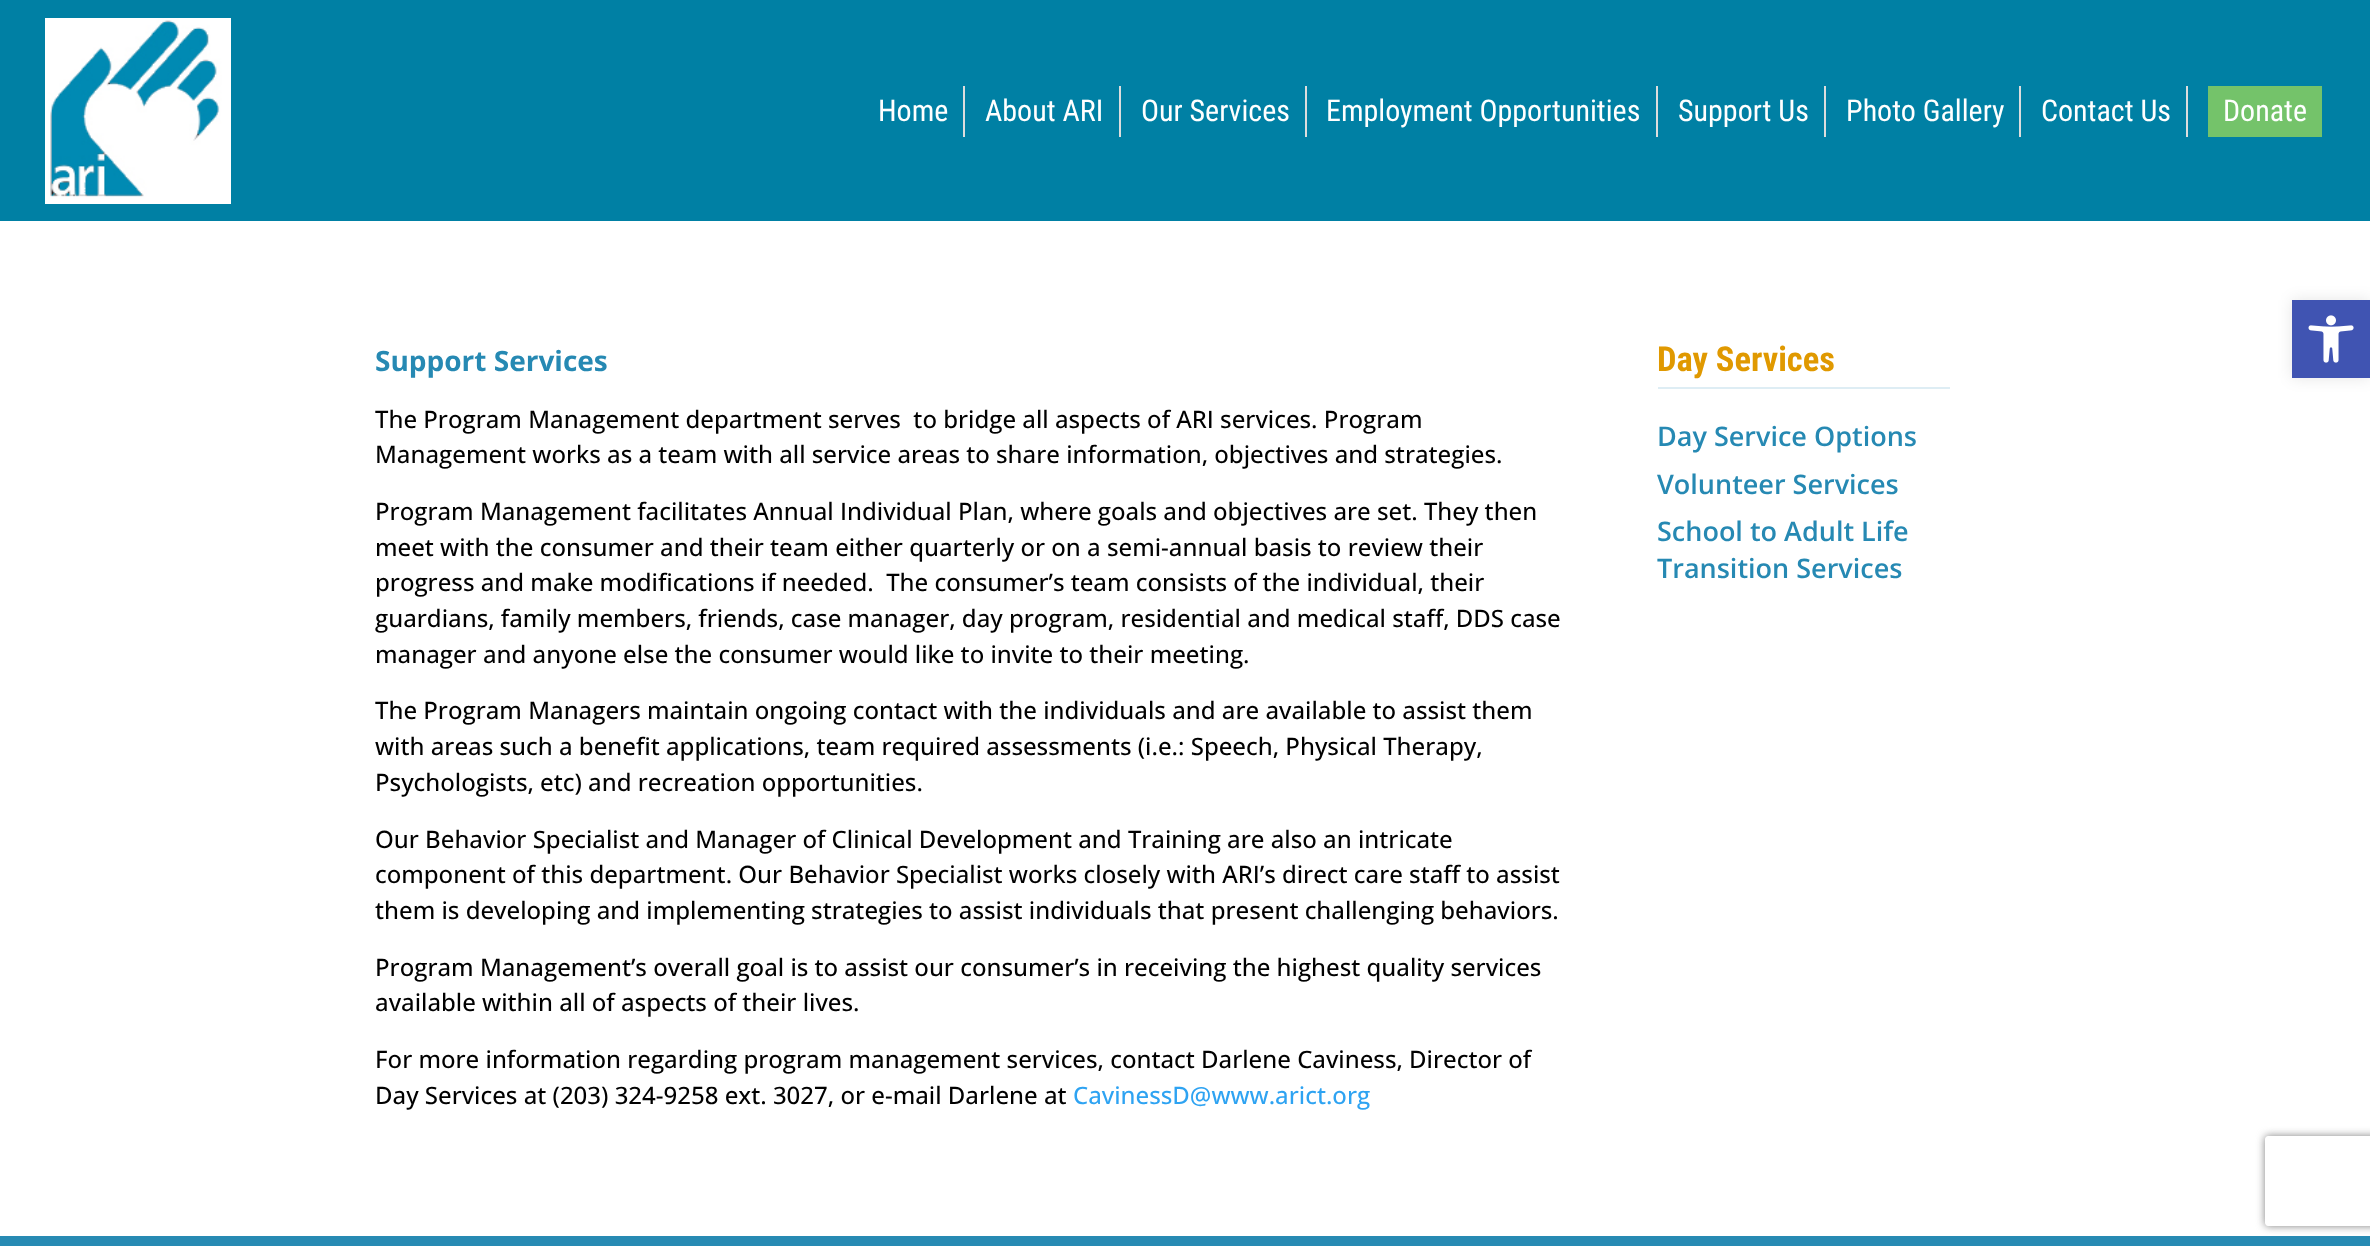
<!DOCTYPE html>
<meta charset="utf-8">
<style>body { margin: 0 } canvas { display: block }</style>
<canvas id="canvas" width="2370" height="1246"></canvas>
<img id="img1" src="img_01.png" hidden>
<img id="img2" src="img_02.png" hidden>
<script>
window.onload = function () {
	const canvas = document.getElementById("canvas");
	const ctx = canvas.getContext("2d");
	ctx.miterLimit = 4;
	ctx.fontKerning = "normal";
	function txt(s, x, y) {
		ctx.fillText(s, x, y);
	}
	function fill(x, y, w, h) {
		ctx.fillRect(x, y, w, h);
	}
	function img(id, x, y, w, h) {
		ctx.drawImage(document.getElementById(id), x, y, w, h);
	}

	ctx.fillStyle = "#FFFFFF";
	fill(0, 0, 2370, 1246);
	ctx.fillStyle = "#0080A4";
	fill(0, 0, 2370, 221);
	img("img1", 45, 18, 186, 186);
	ctx.fillStyle = "#DDDDDD";
	fill(963, 86, 2, 51);
	fill(1119, 86, 2, 51);
	fill(1305, 86, 2, 51);
	fill(1656, 86, 2, 51);
	fill(1824, 86, 2, 51);
	fill(2019, 86, 2, 51);
	fill(2186, 86, 2, 51);
	ctx.fillStyle = "#74C36A";
	fill(2208, 86, 114, 51);
	ctx.fillStyle = "#DEEDF4";
	fill(1658, 387, 292, 2);
	ctx.fillStyle = "#278AB3";
	fill(0, 1236, 2370, 10);
	ctx.fillStyle = "rgba(0, 0, 0, 0.1)";
	ctx.filter = "blur(7.5px)";
	ctx.beginPath();
	ctx.rect(2292, 300, 78, 78);
	ctx.fill();
	ctx.filter = "none";
	ctx.fillStyle = "#4054B2";
	fill(2292, 300, 78, 78);
	img("img2", 2308, 315, 46, 48);
	ctx.save();
	ctx.beginPath();
	ctx.moveTo(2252, 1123);
	ctx.lineTo(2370, 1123);
	ctx.lineTo(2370, 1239);
	ctx.lineTo(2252, 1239);
	ctx.closePath();
	ctx.moveTo(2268, 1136);
	ctx.lineTo(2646, 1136);
	ctx.bezierCurveTo(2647.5, 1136, 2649, 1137.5, 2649, 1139);
	ctx.lineTo(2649, 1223);
	ctx.bezierCurveTo(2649, 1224.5, 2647.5, 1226, 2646, 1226);
	ctx.lineTo(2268, 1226);
	ctx.bezierCurveTo(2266.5, 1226, 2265, 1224.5, 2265, 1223);
	ctx.lineTo(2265, 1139);
	ctx.bezierCurveTo(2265, 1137.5, 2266.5, 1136, 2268, 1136);
	ctx.closePath();
	ctx.clip("evenodd");
	ctx.fillStyle = "#808080";
	ctx.filter = "blur(4px)";
	ctx.beginPath();
	ctx.roundRect(2265, 1136, 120, 90, 3);
	ctx.fill();
	ctx.filter = "none";
	ctx.restore();
	ctx.font = "30px Roboto Condensed";
	ctx.fillStyle = "#FFFFFF";
	txt("Home", 878, 121);
	txt("About ARI", 985, 121);
	txt("Our Services", 1141, 121);
	txt("Employment Opportunities", 1326, 121);
	txt("Support Us", 1678, 121);
	txt("Photo Gallery", 1846, 121);
	txt("Contact Us", 2041, 121);
	txt("Donate", 2223, 121);
	ctx.font = "bold 28px Open Sans";
	ctx.fillStyle = "#2689B3";
	txt("Support Services", 375, 371);
	ctx.font = "500 24px Open Sans";
	ctx.fillStyle = "#000000";
	txt("The Program Management department serves  to bridge all aspects of ARI services. Program", 375, 428);
	txt("Management works as a team with all service areas to share information, objectives and strategies.", 375, 463);
	txt("Program Management facilitates Annual Individual Plan, where goals and objectives are set. They then", 375, 520);
	txt("meet with the consumer and their team either quarterly or on a semi-annual basis to review their", 375, 556);
	txt("progress and make modifications if needed.  The consumer’s team consists of the individual, their", 375, 591);
	txt("guardians, family members, friends, case manager, day program, residential and medical staff, DDS case", 375, 627);
	txt("manager and anyone else the consumer would like to invite to their meeting.", 375, 663);
	txt("The Program Managers maintain ongoing contact with the individuals and are available to assist them", 375, 719);
	txt("with areas such a benefit applications, team required assessments (i.e.: Speech, Physical Therapy,", 375, 755);
	txt("Psychologists, etc) and recreation opportunities.", 375, 791);
	txt("Our Behavior Specialist and Manager of Clinical Development and Training are also an intricate", 375, 848);
	txt("component of this department. Our Behavior Specialist works closely with ARI’s direct care staff to assist", 375, 883);
	txt("them is developing and implementing strategies to assist individuals that present challenging behaviors.", 375, 919);
	txt("Program Management’s overall goal is to assist our consumer’s in receiving the highest quality services", 375, 976);
	txt("available within all of aspects of their lives.", 375, 1011);
	txt("For more information regarding program management services, contact Darlene Caviness, Director of", 375, 1068);
	txt("Day Services at (203) 324-9258 ext. 3027, or e-mail Darlene at", 375, 1104);
	ctx.fillStyle = "#2EA3F2";
	txt("CavinessD@www.arict.org", 1073, 1104);
	ctx.font = "bold 34.5px Roboto Condensed";
	ctx.fillStyle = "#E09900";
	txt("Day Services", 1657, 371);
	ctx.font = "600 27px Open Sans";
	ctx.fillStyle = "#2689B3";
	txt("Day Service Options", 1657, 446);
	txt("Volunteer Services", 1657, 494);
	txt("School to Adult Life", 1657, 541);
	txt("Transition Services", 1657, 578);
};
</script>
